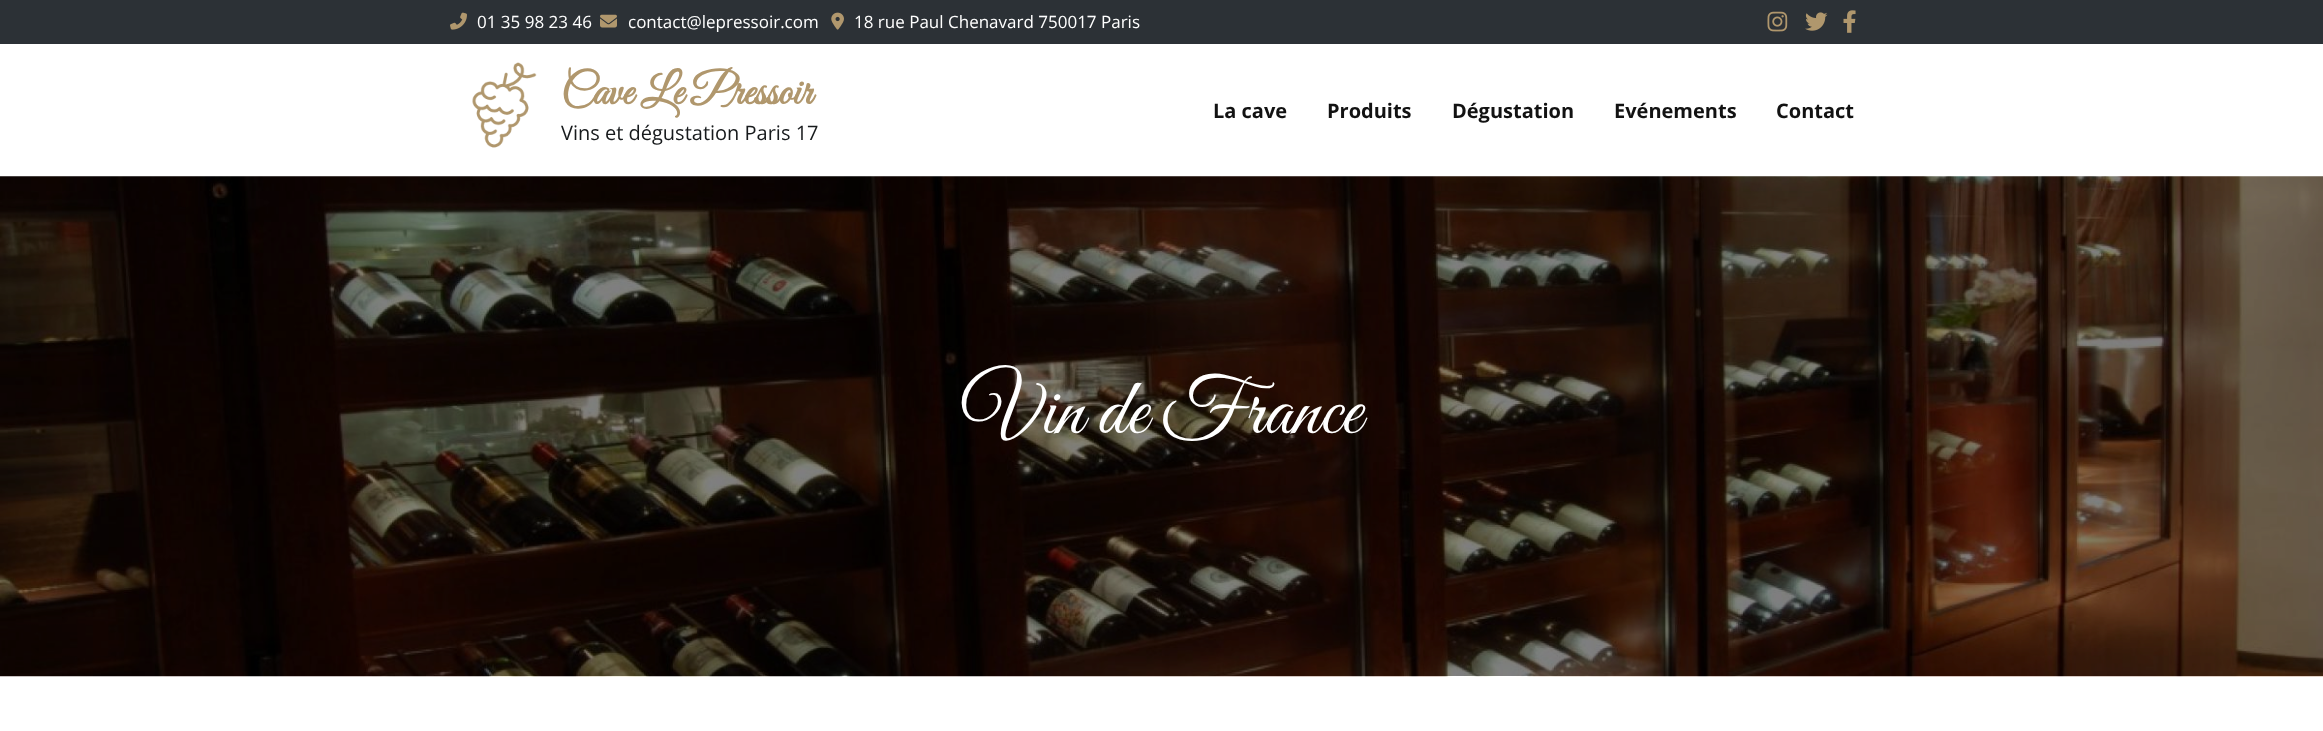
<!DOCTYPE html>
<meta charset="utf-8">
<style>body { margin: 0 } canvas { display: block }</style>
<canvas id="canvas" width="2323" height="731"></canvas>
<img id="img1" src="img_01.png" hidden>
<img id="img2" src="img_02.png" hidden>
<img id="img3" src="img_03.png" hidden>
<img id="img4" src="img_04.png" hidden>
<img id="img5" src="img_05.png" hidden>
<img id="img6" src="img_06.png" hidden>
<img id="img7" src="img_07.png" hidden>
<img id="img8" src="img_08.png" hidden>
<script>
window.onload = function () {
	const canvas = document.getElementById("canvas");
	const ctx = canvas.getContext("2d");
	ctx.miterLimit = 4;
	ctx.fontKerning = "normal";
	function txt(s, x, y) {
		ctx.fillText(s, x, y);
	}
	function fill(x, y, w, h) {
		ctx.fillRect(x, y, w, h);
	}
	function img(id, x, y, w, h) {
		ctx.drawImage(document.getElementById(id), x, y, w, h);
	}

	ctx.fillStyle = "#FFFFFF";
	fill(0, 0, 2323, 731);
	ctx.fillStyle = "#2C3136";
	fill(0, 0, 2323, 44);
	img("img1", 450, 12, 17, 18);
	img("img2", 600, 14, 17, 14);
	img("img3", 831, 12, 13, 18);
	img("img4", 1767, 11, 21, 21);
	img("img5", 1805, 12, 23, 19);
	img("img6", 1843, 10, 13, 23);
	img("img7", 472, 62, 65, 86);
	img("img8", 0, 176, 2323, 501);
	ctx.font = "17px Open Sans";
	ctx.fillStyle = "#FFFFFF";
	txt("01 35 98 23 46", 477, 28);
	txt("contact@lepressoir.com", 628, 28);
	txt("18 rue Paul Chenavard 750017 Paris", 854, 28);
	ctx.font = "bold 44px Great Vibes";
	ctx.fillStyle = "#B0976D";
	txt("Cave Le Pressoir", 561, 104);
	ctx.font = "20px Open Sans";
	ctx.fillStyle = "#171A1C";
	txt("Vins et dégustation Paris 17", 561, 140);
	ctx.font = "bold 20px Open Sans";
	ctx.fillStyle = "#121212";
	txt("La cave", 1213, 118);
	txt("Produits", 1327, 118);
	txt("Dégustation", 1452, 118);
	txt("Evénements", 1614, 118);
	txt("Contact", 1776, 118);
	ctx.font = "80px Great Vibes";
	ctx.fillStyle = "#FFFFFF";
	txt("Vin de France", 962, 433);
};
</script>
